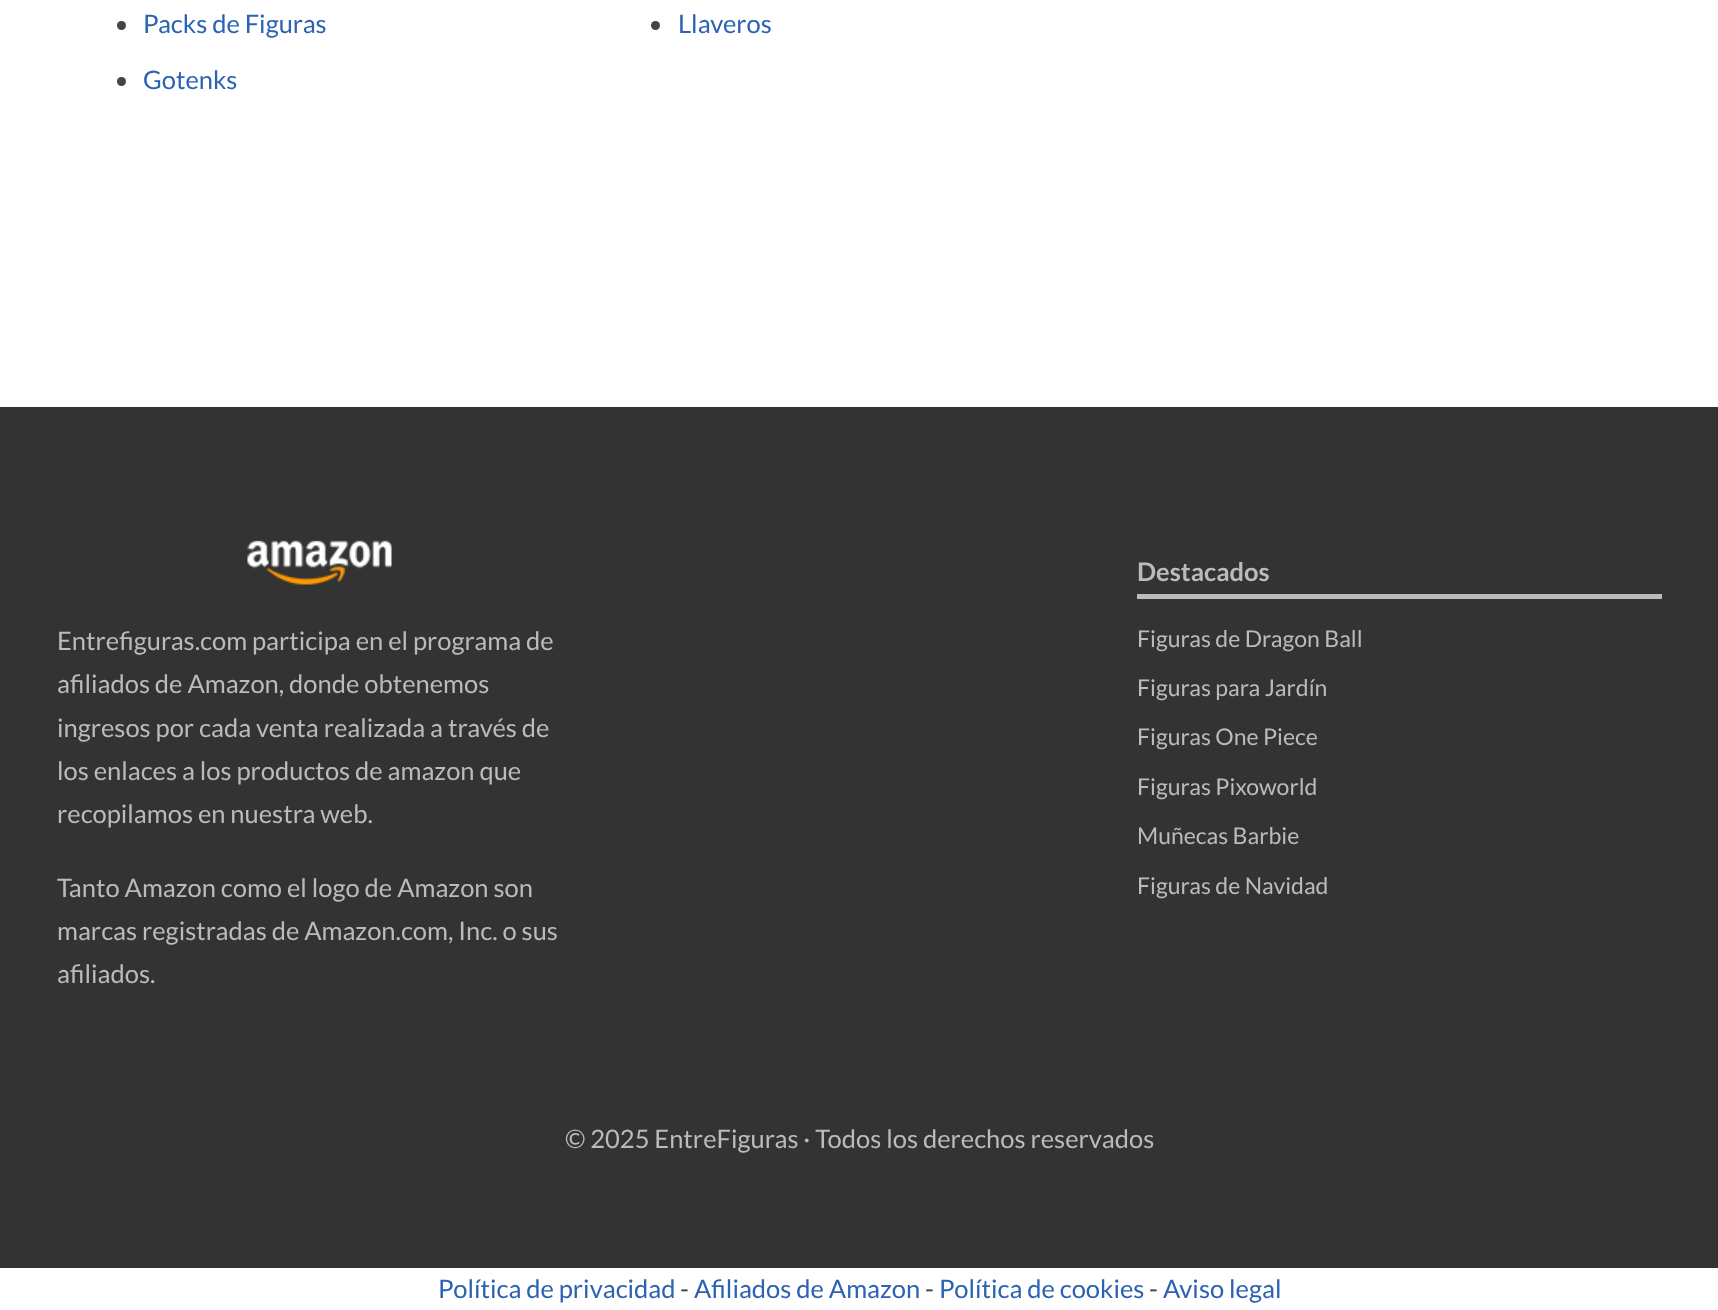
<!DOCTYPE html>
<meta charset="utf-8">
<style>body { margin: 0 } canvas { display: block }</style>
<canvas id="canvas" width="1718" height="1310"></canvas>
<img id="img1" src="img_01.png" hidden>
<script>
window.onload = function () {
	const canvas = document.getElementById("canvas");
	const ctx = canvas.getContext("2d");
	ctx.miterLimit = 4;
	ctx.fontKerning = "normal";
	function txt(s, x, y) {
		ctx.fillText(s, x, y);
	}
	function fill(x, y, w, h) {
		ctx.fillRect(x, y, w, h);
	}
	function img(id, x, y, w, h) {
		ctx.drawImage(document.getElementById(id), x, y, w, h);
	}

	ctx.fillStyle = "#FFFFFF";
	fill(0, 0, 1718, 1310);
	ctx.fillStyle = "#444444";
	ctx.beginPath();
	ctx.arc(121.5, 25.5, 4.5, 0, Math.PI * 2);
	ctx.fill();
	ctx.beginPath();
	ctx.arc(121.5, 81.5, 4.5, 0, Math.PI * 2);
	ctx.fill();
	ctx.beginPath();
	ctx.arc(655.5, 25.5, 4.5, 0, Math.PI * 2);
	ctx.fill();
	ctx.fillStyle = "#333333";
	fill(0, 407, 1718, 861);
	img("img1", 247, 540, 145, 45);
	ctx.fillStyle = "#BBBBBB";
	fill(1137, 594, 525, 5);
	ctx.font = "25.5px Lato";
	ctx.fillStyle = "#2B62B2";
	txt("Packs de Figuras", 143, 33);
	txt("Gotenks", 143, 89);
	txt("Llaveros", 678, 33);
	ctx.fillStyle = "#BBBBBB";
	txt("Entrefiguras.com participa en el programa de", 57, 650);
	txt("afiliados de Amazon, donde obtenemos", 57, 693);
	txt("ingresos por cada venta realizada a través de", 57, 737);
	txt("los enlaces a los productos de amazon que", 57, 780);
	txt("recopilamos en nuestra web.", 57, 823);
	txt("Tanto Amazon como el logo de Amazon son", 57, 897);
	txt("marcas registradas de Amazon.com, Inc. o sus", 57, 940);
	txt("afiliados.", 57, 983);
	ctx.font = "bold 25.5px Lato";
	txt("Destacados", 1137, 581);
	ctx.font = "23px Lato";
	txt("Figuras de Dragon Ball", 1137, 647);
	txt("Figuras para Jardín", 1137, 696);
	txt("Figuras One Piece", 1137, 745);
	txt("Figuras Pixoworld", 1137, 795);
	txt("Muñecas Barbie", 1137, 844);
	txt("Figuras de Navidad", 1137, 894);
	ctx.font = "25.5px Lato";
	txt("© 2025 EntreFiguras · Todos los derechos reservados", 565, 1148);
	ctx.fillStyle = "#2B62B2";
	txt("Política de privacidad", 438, 1298);
	ctx.fillStyle = "#444444";
	txt("-", 680, 1298);
	ctx.fillStyle = "#2B62B2";
	txt("Afiliados de Amazon", 694, 1298);
	ctx.fillStyle = "#444444";
	txt("-", 925, 1298);
	ctx.fillStyle = "#2B62B2";
	txt("Política de cookies", 939, 1298);
	ctx.fillStyle = "#444444";
	txt("-", 1149, 1298);
	ctx.fillStyle = "#2B62B2";
	txt("Aviso legal", 1163, 1298);
};
</script>
